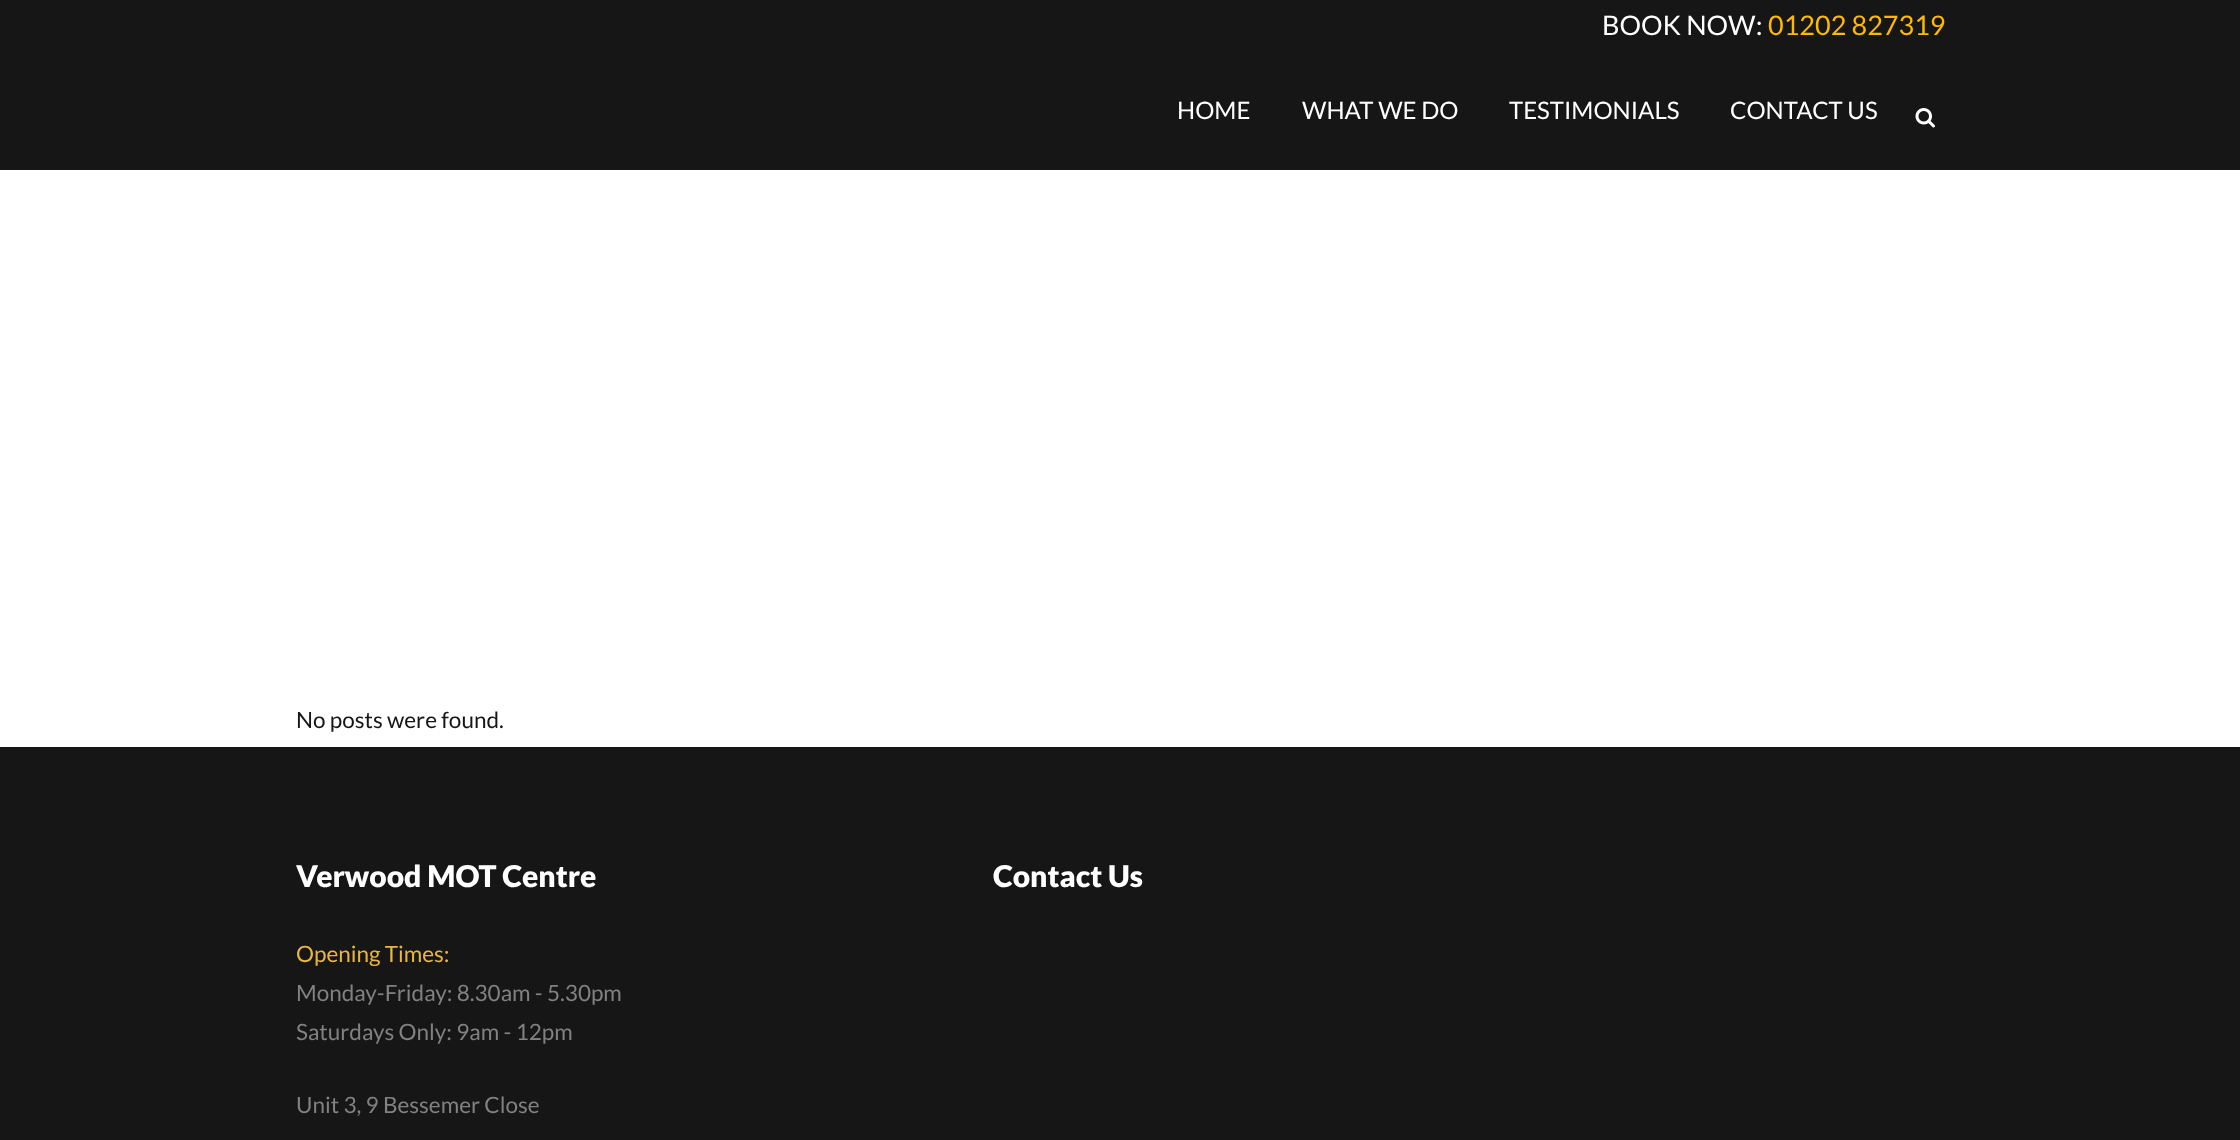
<!DOCTYPE html>
<meta charset="utf-8">
<style>body { margin: 0 } canvas { display: block }</style>
<canvas id="canvas" width="2240" height="1140"></canvas>
<img id="img1" src="img_01.png" hidden>
<script>
window.onload = function () {
	const canvas = document.getElementById("canvas");
	const ctx = canvas.getContext("2d");
	ctx.miterLimit = 4;
	ctx.fontKerning = "normal";
	function txt(s, x, y) {
		ctx.fillText(s, x, y);
	}
	function fill(x, y, w, h) {
		ctx.fillRect(x, y, w, h);
	}
	function img(id, x, y, w, h) {
		ctx.drawImage(document.getElementById(id), x, y, w, h);
	}

	ctx.fillStyle = "#FFFFFF";
	fill(0, 0, 2240, 1140);
	ctx.fillStyle = "#161616";
	fill(0, 0, 2240, 170);
	img("img1", 1915, 108, 20, 20);
	fill(0, 747, 2240, 393);
	ctx.font = "27px Lato";
	ctx.fillStyle = "#FFFFFF";
	txt("BOOK NOW:", 1602, 35);
	ctx.fillStyle = "#FFB900";
	txt("01202 827319", 1768, 35);
	ctx.font = "24px Lato";
	ctx.fillStyle = "#FFFFFF";
	txt("HOME", 1177, 119);
	txt("WHAT WE DO", 1302, 119);
	txt("TESTIMONIALS", 1509, 119);
	txt("CONTACT US", 1730, 119);
	ctx.font = "22.5px Lato";
	ctx.fillStyle = "#161616";
	txt("No posts were found.", 296, 728);
	ctx.font = "900 30px Lato";
	ctx.fillStyle = "#FFFFFF";
	txt("Verwood MOT Centre", 296, 887);
	ctx.font = "22.5px Lato";
	ctx.fillStyle = "#EAB73D";
	txt("Opening Times:", 296, 962);
	ctx.fillStyle = "#818181";
	txt("Monday-Friday: 8.30am - 5.30pm", 296, 1001);
	txt("Saturdays Only: 9am - 12pm", 296, 1040);
	txt("Unit 3, 9 Bessemer Close", 296, 1113);
	ctx.font = "900 30px Lato";
	ctx.fillStyle = "#FFFFFF";
	txt("Contact Us", 993, 887);
};
</script>
